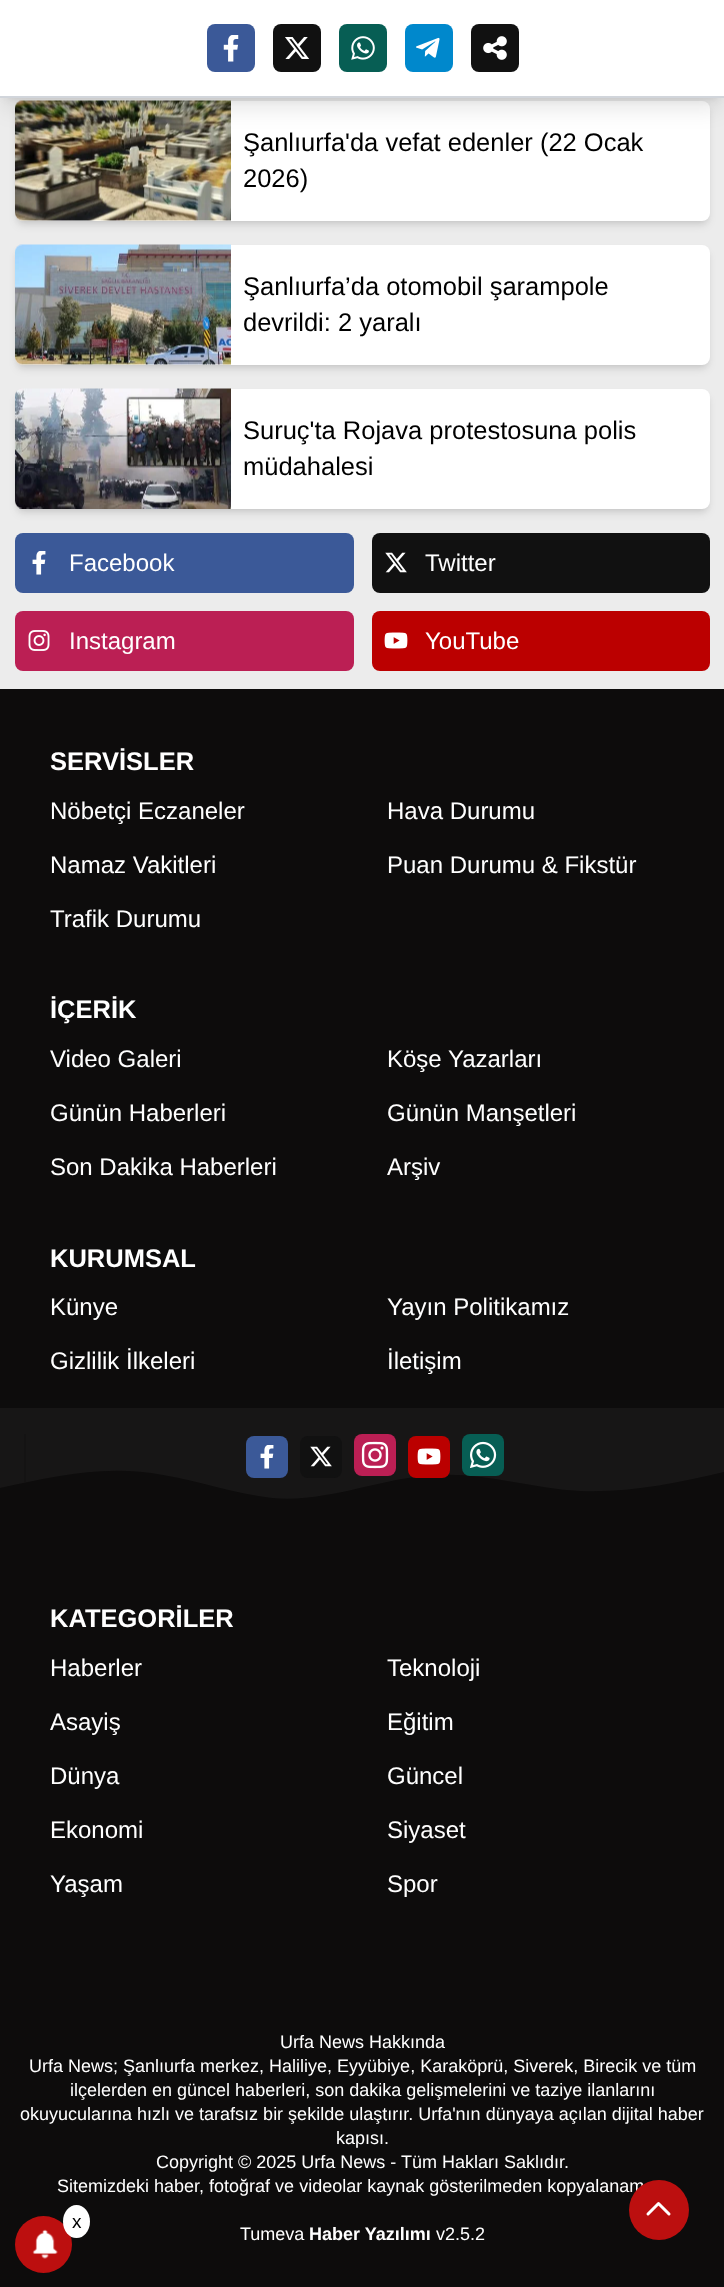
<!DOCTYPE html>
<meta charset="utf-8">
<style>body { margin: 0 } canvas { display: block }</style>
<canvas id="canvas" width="724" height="2287"></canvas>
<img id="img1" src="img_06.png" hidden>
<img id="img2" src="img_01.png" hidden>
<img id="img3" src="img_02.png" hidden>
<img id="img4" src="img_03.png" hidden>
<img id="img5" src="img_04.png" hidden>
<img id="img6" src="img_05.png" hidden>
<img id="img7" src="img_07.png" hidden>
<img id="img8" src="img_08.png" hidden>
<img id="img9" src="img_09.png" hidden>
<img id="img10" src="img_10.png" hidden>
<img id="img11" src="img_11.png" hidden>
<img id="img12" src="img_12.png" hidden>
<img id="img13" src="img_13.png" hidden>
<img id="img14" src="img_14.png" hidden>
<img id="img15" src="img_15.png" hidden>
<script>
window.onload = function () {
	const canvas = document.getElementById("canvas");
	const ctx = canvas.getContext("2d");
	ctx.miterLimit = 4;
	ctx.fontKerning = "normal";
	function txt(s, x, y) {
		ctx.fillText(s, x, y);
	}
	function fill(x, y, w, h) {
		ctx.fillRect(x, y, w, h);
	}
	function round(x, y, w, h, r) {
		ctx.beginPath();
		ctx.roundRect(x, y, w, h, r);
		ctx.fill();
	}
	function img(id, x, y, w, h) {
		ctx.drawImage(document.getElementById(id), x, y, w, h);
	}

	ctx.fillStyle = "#ECECEC";
	fill(0, 0, 724, 2287);
	ctx.fillStyle = "rgba(0, 0, 0, 0.1)";
	ctx.filter = "blur(3px)";
	ctx.beginPath();
	ctx.roundRect(18, 107, 689, 114, 5);
	ctx.fill();
	ctx.filter = "none";
	ctx.filter = "blur(4.5px)";
	ctx.beginPath();
	ctx.roundRect(17, 108, 691, 117, 6);
	ctx.fill();
	ctx.filter = "none";
	ctx.fillStyle = "#FFFFFF";
	round(15, 101, 695, 120, 8);
	img("img1", 15, 100, 216, 121);
	ctx.fillStyle = "rgba(0, 0, 0, 0.1)";
	ctx.filter = "blur(4.5px)";
	ctx.beginPath();
	ctx.rect(6, 12, 713, 86);
	ctx.fill();
	ctx.filter = "none";
	ctx.filter = "blur(11px)";
	ctx.beginPath();
	ctx.rect(5, 20, 715, 88);
	ctx.fill();
	ctx.filter = "none";
	ctx.fillStyle = "#FFFFFF";
	fill(0, 0, 724, 96);
	ctx.fillStyle = "#D1D5DB";
	fill(0, 96, 724, 2);
	ctx.fillStyle = "#3B5998";
	round(207, 24, 48, 48, 8);
	img("img2", 223, 35, 16, 27);
	ctx.fillStyle = "#111111";
	round(273, 24, 48, 48, 8);
	img("img3", 285, 37, 25, 22);
	ctx.fillStyle = "#075E54";
	round(339, 24, 48, 48, 8);
	img("img4", 351, 36, 24, 24);
	ctx.fillStyle = "#0088CC";
	round(405, 24, 48, 48, 8);
	img("img5", 416, 37, 24, 21);
	ctx.fillStyle = "#111111";
	round(471, 24, 48, 48, 8);
	img("img6", 483, 36, 24, 24);
	ctx.fillStyle = "rgba(0, 0, 0, 0.1)";
	ctx.filter = "blur(3px)";
	ctx.beginPath();
	ctx.roundRect(18, 251, 689, 114, 5);
	ctx.fill();
	ctx.filter = "none";
	ctx.filter = "blur(4.5px)";
	ctx.beginPath();
	ctx.roundRect(17, 252, 691, 117, 6);
	ctx.fill();
	ctx.filter = "none";
	ctx.fillStyle = "#FFFFFF";
	round(15, 245, 695, 120, 8);
	img("img7", 15, 244, 216, 121);
	ctx.fillStyle = "rgba(0, 0, 0, 0.1)";
	ctx.filter = "blur(3px)";
	ctx.beginPath();
	ctx.roundRect(18, 395, 689, 114, 5);
	ctx.fill();
	ctx.filter = "none";
	ctx.filter = "blur(4.5px)";
	ctx.beginPath();
	ctx.roundRect(17, 396, 691, 117, 6);
	ctx.fill();
	ctx.filter = "none";
	ctx.fillStyle = "#FFFFFF";
	round(15, 389, 695, 120, 8);
	img("img8", 15, 388, 216, 121);
	ctx.fillStyle = "#3B5998";
	round(15, 533, 339, 60, 8);
	img("img9", 32, 551, 14, 24);
	ctx.fillStyle = "#111111";
	round(372, 533, 338, 60, 8);
	img("img10", 385, 552, 22, 21);
	ctx.fillStyle = "#BB1F54";
	round(15, 611, 339, 60, 8);
	img("img11", 28, 630, 22, 21);
	ctx.fillStyle = "#BB0000";
	round(372, 611, 338, 60, 8);
	img("img12", 384, 632, 24, 17);
	ctx.fillStyle = "#0D0C0C";
	fill(0, 689, 724, 1598);
	ctx.fillStyle = "#BC0F0F";
	ctx.beginPath();
	ctx.arc(43.5, 2244.5, 28.5, 0, Math.PI * 2);
	ctx.fill();
	ctx.fillStyle = "#FFFFFF";
	ctx.beginPath();
	ctx.ellipse(76.5, 2221.5, 13.5, 16.5, 0, 0, Math.PI * 2);
	ctx.fill();
	img("img13", 32, 2229, 26, 30);
	ctx.fillStyle = "#171616";
	ctx.beginPath();
	ctx.moveTo(0, 1488);
	ctx.bezierCurveTo(55, 1476, 106, 1464, 163, 1475);
	ctx.bezierCurveTo(199, 1481, 235, 1494, 272, 1498);
	ctx.bezierCurveTo(328, 1503, 379, 1478, 435, 1475);
	ctx.bezierCurveTo(484, 1472, 531, 1488, 580, 1491);
	ctx.bezierCurveTo(629, 1493, 677, 1483, 724, 1472);
	ctx.lineTo(724, 1408);
	ctx.lineTo(0, 1408);
	ctx.closePath();
	ctx.fill();
	ctx.fillStyle = "rgba(0, 0, 0, 0.12)";
	fill(24, 1434, 2, 48);
	ctx.fillStyle = "#3B5998";
	round(246, 1436, 42, 42, 8);
	img("img9", 260, 1445, 14, 24);
	ctx.fillStyle = "#111111";
	round(300, 1436, 42, 42, 8);
	img("img10", 310, 1446, 22, 21);
	ctx.fillStyle = "#BB1F54";
	round(354, 1434, 42, 42, 8);
	img("img14", 361, 1441, 28, 28);
	ctx.fillStyle = "#BB0000";
	round(408, 1436, 42, 42, 8);
	img("img12", 417, 1448, 24, 17);
	ctx.fillStyle = "#075E54";
	round(462, 1434, 42, 42, 8);
	img("img15", 470, 1441, 27, 27);
	ctx.font = "25.5px Liberation Sans";
	ctx.fillStyle = "#000000";
	txt("Şanlıurfa'da vefat edenler (22 Ocak", 243, 151);
	txt("2026)", 243, 187);
	txt("Şanlıurfa’da otomobil şarampole", 243, 295);
	txt("devrildi: 2 yaralı", 243, 331);
	txt("Suruç'ta Rojava protestosuna polis", 243, 439);
	txt("müdahalesi", 243, 475);
	ctx.font = "24px Liberation Sans";
	ctx.fillStyle = "#FFFFFF";
	txt("Facebook", 69, 571);
	txt("Twitter", 425, 571);
	txt("Instagram", 69, 649);
	txt("YouTube", 425, 649);
	ctx.font = "19px Liberation Sans";
	ctx.fillStyle = "#000000";
	txt("x", 72, 2228);
	ctx.font = "bold 25.5px Liberation Sans";
	ctx.fillStyle = "#FFFFFF";
	txt("SERVİSLER", 50, 770);
	ctx.font = "24px Liberation Sans";
	txt("Nöbetçi Eczaneler", 50, 819);
	txt("Hava Durumu", 387, 819);
	txt("Namaz Vakitleri", 50, 873);
	txt("Puan Durumu & Fikstür", 387, 873);
	txt("Trafik Durumu", 50, 927);
	ctx.font = "bold 25.5px Liberation Sans";
	txt("İÇERİK", 50, 1018);
	ctx.font = "24px Liberation Sans";
	txt("Video Galeri", 50, 1067);
	txt("Köşe Yazarları", 387, 1067);
	txt("Günün Haberleri", 50, 1121);
	txt("Günün Manşetleri", 387, 1121);
	txt("Son Dakika Haberleri", 50, 1175);
	txt("Arşiv", 387, 1175);
	ctx.font = "bold 25.5px Liberation Sans";
	txt("KURUMSAL", 50, 1267);
	ctx.font = "24px Liberation Sans";
	txt("Künye", 50, 1315);
	txt("Yayın Politikamız", 387, 1315);
	txt("Gizlilik İlkeleri", 50, 1369);
	txt("İletişim", 387, 1369);
	ctx.font = "bold 25.5px Liberation Sans";
	txt("KATEGORİLER", 50, 1627);
	ctx.font = "24px Liberation Sans";
	txt("Haberler", 50, 1676);
	txt("Teknoloji", 387, 1676);
	txt("Asayiş", 50, 1730);
	txt("Eğitim", 387, 1730);
	txt("Dünya", 50, 1784);
	txt("Güncel", 387, 1784);
	txt("Ekonomi", 50, 1838);
	txt("Siyaset", 387, 1838);
	txt("Yaşam", 50, 1892);
	txt("Spor", 387, 1892);
	ctx.font = "18px Liberation Sans";
	txt("Urfa News Hakkında", 280, 2048);
	txt("Urfa News; Şanlıurfa merkez, Haliliye, Eyyübiye, Karaköprü, Siverek, Birecik ve tüm", 29, 2072);
	txt("ilçelerden en güncel haberleri, son dakika gelişmelerini ve taziye ilanlarını", 70, 2096);
	txt("okuyucularına hızlı ve tarafsız bir şekilde ulaştırır. Urfa'nın dünyaya açılan dijital haber", 20, 2120);
	txt("kapısı.", 336, 2144);
	txt("Copyright © 2025 Urfa News - Tüm Hakları Saklıdır.", 156, 2168);
	txt("Sitemizdeki haber, fotoğraf ve videolar kaynak gösterilmeden kopyalanam", 57, 2192);
	txt("Tumeva", 240, 2240);
	ctx.font = "bold 18px Liberation Sans";
	txt("Haber Yazılımı", 309, 2240);
	ctx.font = "18px Liberation Sans";
	txt("v2.5.2", 436, 2240);
	ctx.fillStyle = "#BC0F0F";
	ctx.beginPath();
	ctx.arc(659, 2210, 30, 0, Math.PI * 2);
	ctx.fill();
	ctx.beginPath();
	ctx.moveTo(648, 2214);
	ctx.lineTo(658.5, 2203.5);
	ctx.lineTo(669, 2214);
	ctx.strokeStyle = "#FFFFFF";
	ctx.lineWidth = 3;
	ctx.lineCap = "round";
	ctx.lineJoin = "round";
	ctx.stroke();
};
</script>
